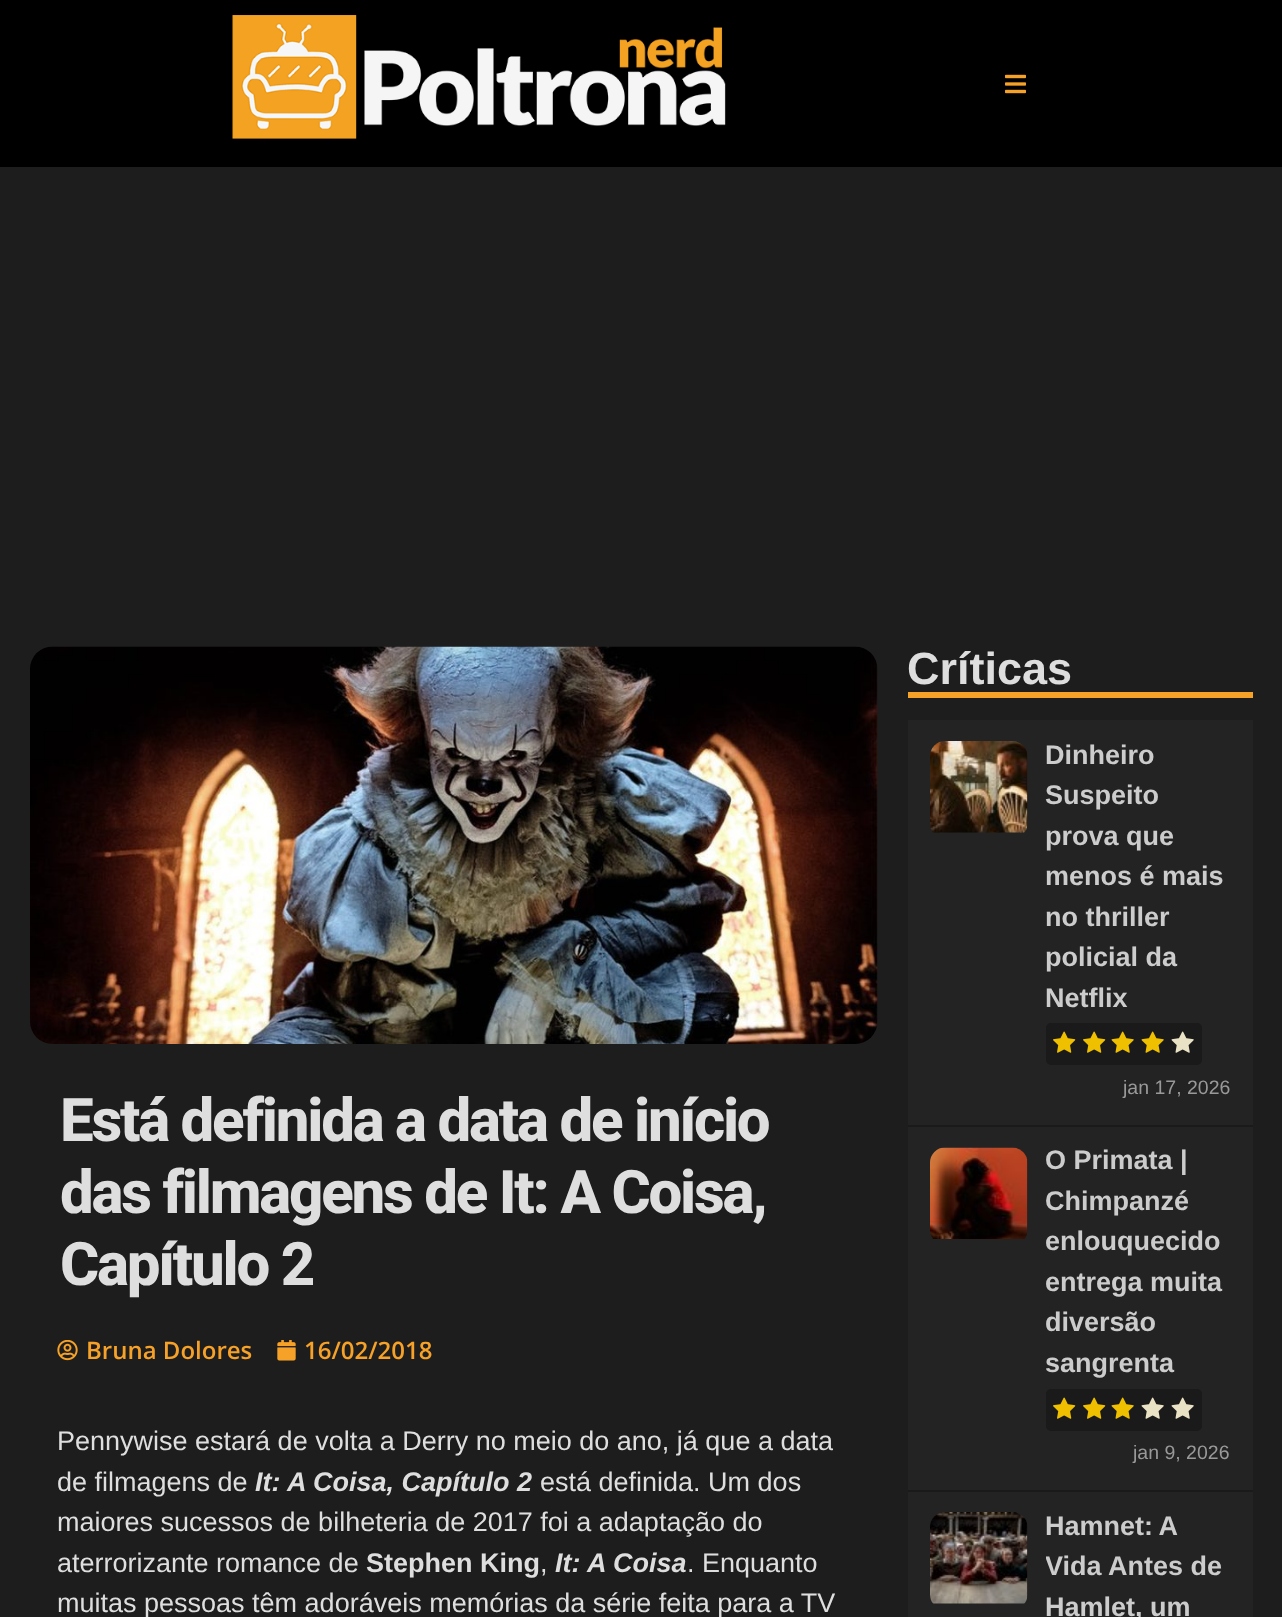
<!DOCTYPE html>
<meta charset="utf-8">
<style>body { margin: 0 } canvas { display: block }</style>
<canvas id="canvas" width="1282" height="1617"></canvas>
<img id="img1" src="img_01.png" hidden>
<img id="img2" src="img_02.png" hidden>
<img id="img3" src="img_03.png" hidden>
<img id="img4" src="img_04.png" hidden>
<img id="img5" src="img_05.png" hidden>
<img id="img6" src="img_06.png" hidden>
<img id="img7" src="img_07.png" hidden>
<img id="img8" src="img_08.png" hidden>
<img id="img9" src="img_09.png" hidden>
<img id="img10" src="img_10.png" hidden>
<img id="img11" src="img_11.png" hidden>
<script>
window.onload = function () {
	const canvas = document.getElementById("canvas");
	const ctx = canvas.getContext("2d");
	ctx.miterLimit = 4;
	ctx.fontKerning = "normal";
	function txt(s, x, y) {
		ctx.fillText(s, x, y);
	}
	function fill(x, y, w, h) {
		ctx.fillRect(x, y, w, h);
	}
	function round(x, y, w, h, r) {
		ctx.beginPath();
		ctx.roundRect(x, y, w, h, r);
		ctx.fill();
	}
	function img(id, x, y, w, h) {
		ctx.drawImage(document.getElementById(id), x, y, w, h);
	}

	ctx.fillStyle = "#1E1D1D";
	fill(0, 0, 1282, 1617);
	ctx.fillStyle = "#000000";
	fill(0, 0, 1282, 167);
	img("img1", 232, 15, 494, 124);
	img("img2", 1005, 74, 21, 20);
	img("img3", 30, 646, 848, 398);
	img("img4", 57, 1340, 21, 21);
	img("img5", 277, 1340, 19, 21);
	ctx.fillStyle = "#F6A128";
	fill(908, 692, 345, 6);
	ctx.fillStyle = "#232323";
	fill(908, 720, 345, 897);
	ctx.fillStyle = "#1A1A1A";
	fill(908, 1125, 345, 2);
	img("img6", 930, 741, 98, 92);
	round(1046, 1023, 156, 42, 5);
	img("img7", 1053, 1031, 23, 22);
	img("img7", 1083, 1031, 23, 22);
	img("img8", 1111, 1031, 23, 22);
	img("img8", 1141, 1031, 23, 22);
	img("img9", 1171, 1031, 23, 22);
	fill(908, 1490, 345, 2);
	img("img10", 930, 1147, 98, 92);
	round(1046, 1389, 156, 42, 5);
	img("img7", 1053, 1397, 23, 22);
	img("img7", 1083, 1397, 23, 22);
	img("img8", 1111, 1397, 23, 22);
	img("img9", 1141, 1397, 23, 22);
	img("img9", 1171, 1397, 23, 22);
	img("img11", 930, 1512, 98, 92);
	ctx.letterSpacing = "-2.25px";
	ctx.font = "800 60px Roboto";
	ctx.fillStyle = "#DEDEDE";
	txt("Está definida a data de início", 60, 1141);
	txt("das filmagens de It: A Coisa,", 60, 1213);
	txt("Capítulo 2", 60, 1285);
	ctx.letterSpacing = "0px";
	ctx.font = "600 24px Open Sans";
	ctx.fillStyle = "#F6A128";
	txt("Bruna Dolores", 86, 1359);
	txt("16/02/2018", 304, 1359);
	ctx.font = "27px Liberation Sans";
	ctx.fillStyle = "#DEDEDE";
	txt("Pennywise estará de volta a Derry no meio do ano, já que a data", 57, 1450);
	txt("de filmagens de", 57, 1491);
	ctx.font = "italic bold 27px Liberation Sans";
	txt("It: A Coisa, Capítulo 2", 255, 1491);
	ctx.font = "27px Liberation Sans";
	txt("está definida. Um dos", 540, 1491);
	txt("maiores sucessos de bilheteria de 2017 foi a adaptação do", 57, 1531);
	txt("aterrorizante romance de", 57, 1572);
	ctx.font = "bold 27px Liberation Sans";
	txt("Stephen King", 366, 1572);
	ctx.font = "27px Liberation Sans";
	txt(",", 540, 1572);
	ctx.font = "italic bold 27px Liberation Sans";
	txt("It: A Coisa", 555, 1572);
	ctx.font = "27px Liberation Sans";
	txt(". Enquanto", 687, 1572);
	txt("muitas pessoas têm adoráveis memórias da série feita para a TV", 57, 1612);
	ctx.font = "bold 45px Liberation Sans";
	txt("Críticas", 907, 684);
	ctx.font = "bold 27px Liberation Sans";
	ctx.fillStyle = "#CCCCCC";
	txt("Dinheiro", 1045, 764);
	txt("Suspeito", 1045, 804);
	txt("prova que", 1045, 845);
	txt("menos é mais", 1045, 885);
	txt("no thriller", 1045, 926);
	txt("policial da", 1045, 966);
	txt("Netflix", 1045, 1007);
	ctx.font = "19.5px Liberation Sans";
	ctx.fillStyle = "#999999";
	txt("jan 17, 2026", 1123, 1094);
	ctx.font = "bold 27px Liberation Sans";
	ctx.fillStyle = "#CCCCCC";
	txt("O Primata |", 1045, 1169);
	ctx.save();
	ctx.beginPath();
	ctx.rect(1046, 1142, 184, 325);
	ctx.clip();
	txt("Chimpanzé", 1045, 1210);
	txt("enlouquecido", 1045, 1250);
	txt("entrega muita", 1045, 1291);
	txt("diversão", 1045, 1331);
	ctx.restore();
	txt("sangrenta", 1045, 1372);
	ctx.font = "19.5px Liberation Sans";
	ctx.fillStyle = "#999999";
	txt("jan 9, 2026", 1133, 1459);
	ctx.wordSpacing = "-1px";
	ctx.font = "bold 27px Liberation Sans";
	ctx.fillStyle = "#CCCCCC";
	txt("Hamnet: A", 1045, 1535);
	ctx.save();
	ctx.beginPath();
	ctx.rect(1046, 1506, 184, 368);
	ctx.clip();
	ctx.wordSpacing = "0px";
	txt("Vida Antes de", 1045, 1575);
	ctx.restore();
	ctx.wordSpacing = "0px";
	txt("Hamlet, um", 1045, 1616);
};
</script>
